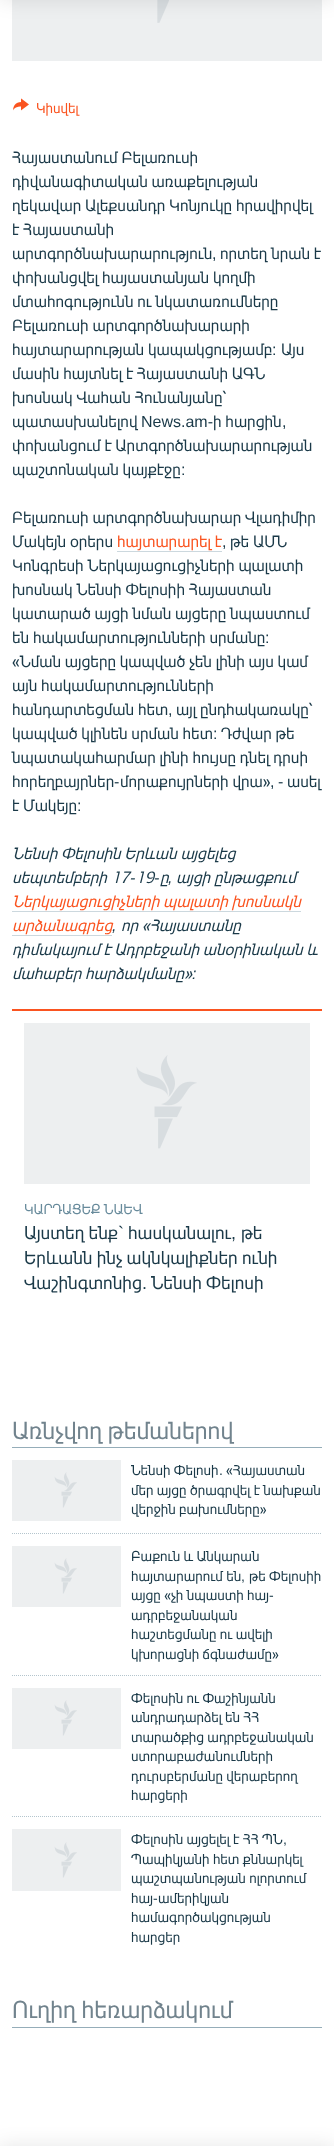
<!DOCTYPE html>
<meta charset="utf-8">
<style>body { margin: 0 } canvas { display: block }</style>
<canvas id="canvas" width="334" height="2146"></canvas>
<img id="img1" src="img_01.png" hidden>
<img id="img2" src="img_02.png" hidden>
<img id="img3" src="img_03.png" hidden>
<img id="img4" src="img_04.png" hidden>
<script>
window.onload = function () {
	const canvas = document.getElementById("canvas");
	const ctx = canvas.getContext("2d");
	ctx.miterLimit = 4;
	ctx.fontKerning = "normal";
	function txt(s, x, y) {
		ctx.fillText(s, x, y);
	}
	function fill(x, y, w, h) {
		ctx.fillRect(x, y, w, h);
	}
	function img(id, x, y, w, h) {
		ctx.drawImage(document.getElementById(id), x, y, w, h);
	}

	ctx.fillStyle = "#FFFFFF";
	fill(0, 0, 334, 2146);
	ctx.fillStyle = "#EDEFF0";
	fill(12, 0, 310, 61);
	img("img1", 157, 0, 12, 23);
	ctx.fillStyle = "rgba(0, 0, 0, 0.1)";
	ctx.filter = "blur(10px)";
	ctx.beginPath();
	ctx.rect(0, -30, 334, 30);
	ctx.fill();
	ctx.filter = "none";
	ctx.filter = "blur(10px)";
	ctx.beginPath();
	ctx.rect(0, 2146, 334, 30);
	ctx.fill();
	ctx.filter = "none";
	img("img2", 13, 98, 16, 13);
	ctx.fillStyle = "#CCD8DE";
	fill(117, 551, 105, 1);
	fill(12, 911, 289, 1);
	fill(12, 935, 100, 1);
	ctx.fillStyle = "#FA5420";
	fill(12, 1009, 310, 2);
	ctx.fillStyle = "#EDEFF0";
	fill(24, 1023, 286, 161);
	img("img3", 136, 1055, 61, 94);
	ctx.fillStyle = "#95ADB9";
	fill(12, 1447, 310, 1);
	ctx.fillStyle = "#EDEFF0";
	fill(12, 1460, 109, 61);
	img("img4", 54, 1472, 23, 36);
	ctx.beginPath();
	ctx.moveTo(12, 1533.5);
	ctx.lineTo(322, 1533.5);
	ctx.strokeStyle = "#B4C5CD";
	ctx.setLineDash([1, 1]);
	ctx.stroke();
	fill(12, 1546, 109, 61);
	img("img4", 54, 1558, 23, 36);
	ctx.beginPath();
	ctx.moveTo(12, 1675.5);
	ctx.lineTo(322, 1675.5);
	ctx.stroke();
	fill(12, 1688, 109, 61);
	img("img4", 54, 1700, 23, 36);
	ctx.beginPath();
	ctx.moveTo(12, 1816.5);
	ctx.lineTo(322, 1816.5);
	ctx.stroke();
	fill(12, 1829, 109, 62);
	img("img4", 54, 1842, 23, 36);
	ctx.fillStyle = "#95ADB9";
	fill(12, 2027, 310, 1);
	ctx.font = "14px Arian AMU";
	ctx.fillStyle = "#FA5420";
	txt("Կիսվել", 36, 113);
	ctx.font = "16px Arian AMU";
	ctx.fillStyle = "#1A3948";
	txt("Հայաստանում Բելառուսի", 12, 163);
	txt("դիվանագիտական առաքելության", 12, 187);
	txt("ղեկավար Ալեքսանդր Կոնյուկը հրավիրվել", 12, 211);
	txt("է Հայաստանի", 12, 235);
	txt("արտգործնախարարություն", 12, 259);
	ctx.font = "16px Liberation Sans";
	txt(",", 212, 259);
	ctx.font = "16px Arian AMU";
	txt("որտեղ նրան է", 220, 259);
	txt("փոխանցվել հայաստանյան կողմի", 12, 283);
	txt("մտահոգությունն ու նկատառումները", 12, 307);
	txt("Բելառուսի արտգործնախարարի", 12, 331);
	txt("հայտարարության կապակցությամբ", 12, 355);
	ctx.font = "16px Liberation Sans";
	txt(":", 272, 355);
	ctx.font = "16px Arian AMU";
	txt("Այս", 281, 355);
	txt("մասին հայտնել է Հայաստանի ԱԳՆ", 12, 379);
	txt("խոսնակ Վահան Հունանյանը՝", 12, 403);
	txt("պատասխանելով", 12, 427);
	ctx.font = "16px Liberation Sans";
	txt("News.am-", 141, 427);
	ctx.font = "16px Arian AMU";
	txt("ի հարցին", 213, 427);
	ctx.font = "16px Liberation Sans";
	txt(",", 282, 427);
	ctx.font = "16px Arian AMU";
	txt("փոխանցում է Արտգործնախարարության", 12, 451);
	txt("պաշտոնական կայքէջը", 12, 475);
	ctx.font = "16px Liberation Sans";
	txt(":", 181, 475);
	ctx.font = "16px Arian AMU";
	txt("Բելառուսի արտգործնախարար Վլադիմիր", 12, 523);
	txt("Մակեյն օրերս", 12, 547);
	ctx.fillStyle = "#FA5420";
	txt("հայտարարել է", 117, 547);
	ctx.font = "16px Liberation Sans";
	ctx.fillStyle = "#1A3948";
	txt(",", 222, 547);
	ctx.font = "16px Arian AMU";
	txt("թե ԱՄՆ", 230, 547);
	txt("Կոնգրեսի Ներկայացուցիչների պալատի", 12, 571);
	txt("խոսնակ Նենսի Փելոսիի Հայաստան", 12, 595);
	txt("կատարած այցի նման այցերը նպաստում", 12, 619);
	txt("են հակամարտությունների սրմանը", 12, 643);
	ctx.font = "16px Liberation Sans";
	txt(":", 265, 643);
	ctx.font = "16px Arian AMU";
	txt("«Նման այցերը կապված չեն լինի այս կամ", 12, 667);
	txt("այն հակամարտությունների", 12, 691);
	txt("հանդարտեցման հետ", 12, 715);
	ctx.font = "16px Liberation Sans";
	txt(",", 168, 715);
	ctx.font = "16px Arian AMU";
	txt("այլ ընդհակառակը՝", 176, 715);
	txt("կապված կլինեն սրման հետ", 12, 739);
	ctx.font = "16px Liberation Sans";
	txt(":", 213, 739);
	ctx.font = "16px Arian AMU";
	txt("Դժվար թե", 221, 739);
	txt("նպատակահարմար լինի հույսը դնել դրսի", 12, 763);
	txt("հորեղբայրներ", 12, 787);
	ctx.font = "16px Liberation Sans";
	txt("-", 114, 787);
	ctx.font = "16px Arian AMU";
	txt("մորաքույրների վրա»", 120, 787);
	ctx.font = "16px Liberation Sans";
	txt("-", 278, 787);
	ctx.font = "16px Arian AMU";
	txt("ասել", 287, 787);
	ctx.font = "16px Liberation Sans";
	txt(",", 270, 787);
	ctx.font = "16px Arian AMU";
	txt("է Մակեյը", 12, 811);
	ctx.font = "16px Liberation Sans";
	txt(":", 77, 811);
	ctx.font = "italic 16px Arian AMU";
	txt("Նենսի Փելոսին Երևան այցելեց", 12, 859);
	txt("սեպտեմբերի 17", 12, 883);
	ctx.font = "italic 16px Liberation Sans";
	txt("-", 130, 883);
	ctx.font = "italic 16px Arian AMU";
	txt("19", 135, 883);
	ctx.font = "italic 16px Liberation Sans";
	txt("-", 154, 883);
	ctx.font = "italic 16px Arian AMU";
	txt("ը", 160, 883);
	txt("այցի ընթացքում", 176, 883);
	ctx.font = "italic 16px Liberation Sans";
	txt(",", 168, 883);
	ctx.font = "italic 16px Arian AMU";
	ctx.fillStyle = "#FA5420";
	txt("Ներկայացուցիչների պալատի խոսնակն", 12, 907);
	txt("արձանագրեց", 12, 931);
	ctx.fillStyle = "#1A3948";
	txt("որ «Հայաստանը", 121, 931);
	ctx.font = "italic 16px Liberation Sans";
	txt(",", 112, 931);
	ctx.font = "italic 16px Arian AMU";
	txt("դիմակայում է Ադրբեջանի անօրինական և", 12, 955);
	txt("մահաբեր հարձակմանը»", 12, 979);
	ctx.font = "italic 16px Liberation Sans";
	txt(":", 192, 979);
	ctx.font = "14px Arian AMU";
	ctx.fillStyle = "#678A9B";
	txt("ԿԱՐԴԱՑԵՔ ՆԱԵՎ", 24, 1214);
	ctx.font = "18px Arian AMU";
	ctx.fillStyle = "#1A3948";
	txt("Այստեղ ենք", 24, 1239);
	ctx.font = "18px Liberation Sans";
	txt("`", 118, 1239);
	ctx.font = "18px Arian AMU";
	txt("հասկանալու", 128, 1239);
	ctx.font = "18px Liberation Sans";
	txt(",", 231, 1239);
	ctx.font = "18px Arian AMU";
	txt("թե", 241, 1239);
	txt("Երևանն ինչ ակնկալիքներ ունի", 24, 1264);
	txt("Վաշինգտոնից", 24, 1289);
	ctx.font = "18px Liberation Sans";
	txt(".", 142, 1289);
	ctx.font = "18px Arian AMU";
	txt("Նենսի Փելոսի", 151, 1289);
	ctx.font = "24px Arian AMU";
	ctx.fillStyle = "#71838D";
	txt("Առնչվող թեմաներով", 12, 1439);
	ctx.font = "14px Arian AMU";
	ctx.fillStyle = "#1A3948";
	txt("Նենսի Փելոսի", 131, 1475);
	ctx.font = "14px Liberation Sans";
	txt(".", 219, 1475);
	ctx.font = "14px Arian AMU";
	txt("«Հայաստան", 226, 1475);
	txt("մեր այցը ծրագրվել է նախքան", 131, 1495);
	txt("վերջին բախումները»", 131, 1514);
	txt("Բաքուն և Անկարան", 131, 1561);
	txt("հայտարարում են", 131, 1581);
	ctx.font = "14px Liberation Sans";
	txt(",", 241, 1581);
	ctx.font = "14px Arian AMU";
	txt("թե Փելոսիի", 249, 1581);
	txt("այցը «չի նպաստի հայ", 131, 1600);
	ctx.font = "14px Liberation Sans";
	txt("-", 269, 1600);
	ctx.font = "14px Arian AMU";
	txt("ադրբեջանական", 131, 1620);
	txt("հաշտեցմանը ու ավելի", 131, 1639);
	txt("կխորացնի ճգնաժամը»", 131, 1659);
	txt("Փելոսին ու Փաշինյանն", 131, 1703);
	txt("անդրադարձել են ՀՀ", 131, 1722);
	txt("տարածքից ադրբեջանական", 131, 1742);
	txt("ստորաբաժանումների", 131, 1761);
	txt("դուրսբերմանը վերաբերող", 131, 1781);
	txt("հարցերի", 131, 1800);
	txt("Փելոսին այցելել է ՀՀ ՊՆ", 131, 1844);
	ctx.font = "14px Liberation Sans";
	txt(",", 283, 1844);
	ctx.font = "14px Arian AMU";
	txt("Պապիկյանի հետ քննարկել", 131, 1864);
	txt("պաշտպանության ոլորտում", 131, 1883);
	txt("հայ", 131, 1903);
	ctx.font = "14px Liberation Sans";
	txt("-", 153, 1903);
	ctx.font = "14px Arian AMU";
	txt("ամերիկյան", 158, 1903);
	txt("համագործակցության", 131, 1922);
	txt("հարցեր", 131, 1942);
	ctx.font = "24px Arian AMU";
	ctx.fillStyle = "#71838D";
	txt("Ուղիղ հեռարձակում", 12, 2018);
};
</script>
